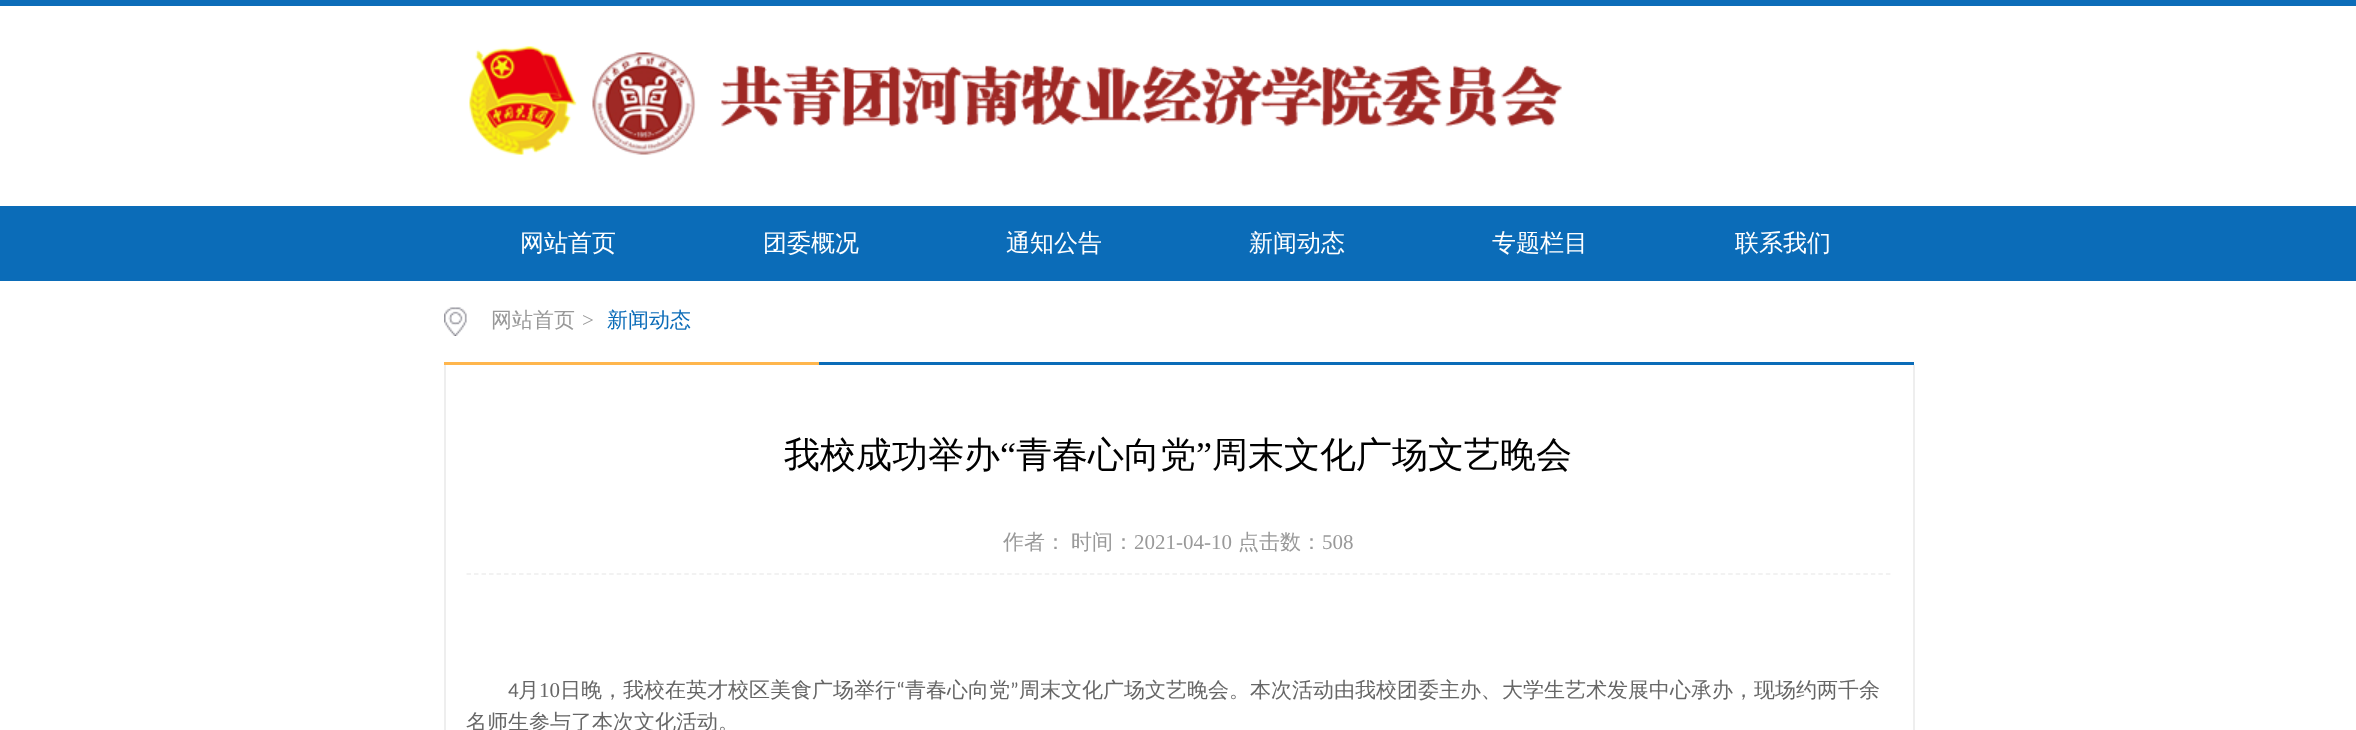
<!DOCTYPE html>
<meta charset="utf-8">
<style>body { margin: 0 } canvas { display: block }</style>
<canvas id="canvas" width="2356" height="730"></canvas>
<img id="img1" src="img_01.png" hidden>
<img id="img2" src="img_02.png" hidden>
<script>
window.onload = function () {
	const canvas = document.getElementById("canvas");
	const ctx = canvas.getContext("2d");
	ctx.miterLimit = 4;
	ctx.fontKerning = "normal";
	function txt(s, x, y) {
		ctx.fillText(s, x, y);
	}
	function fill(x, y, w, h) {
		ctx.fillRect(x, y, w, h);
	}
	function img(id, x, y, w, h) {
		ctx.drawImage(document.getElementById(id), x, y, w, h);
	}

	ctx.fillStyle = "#FFFFFF";
	fill(0, 0, 2356, 730);
	ctx.fillStyle = "#0D6DB9";
	fill(0, 0, 2356, 6);
	img("img1", 469, 46, 1093, 109);
	ctx.fillStyle = "#0B6CB8";
	fill(0, 206, 2356, 75);
	fill(819, 362, 1095, 3);
	ctx.fillStyle = "#FFB64D";
	fill(444, 362, 375, 3);
	img("img2", 444, 307, 23, 29);
	ctx.fillStyle = "#EEEEEE";
	fill(1913, 365, 2, 365);
	fill(444, 365, 2, 365);
	ctx.beginPath();
	ctx.moveTo(466.5, 574);
	ctx.lineTo(1891.5, 574);
	ctx.strokeStyle = "#EEEEEE";
	ctx.lineWidth = 1.5;
	ctx.setLineDash([4.5, 3.01]);
	ctx.stroke();
	ctx.font = "500 24px WenQuanYi Zen Hei";
	ctx.fillStyle = "#FFFFFF";
	txt("网站首页", 520, 251);
	txt("团委概况", 763, 251);
	txt("通知公告", 1006, 251);
	txt("新闻动态", 1249, 251);
	txt("专题栏目", 1492, 251);
	txt("联系我们", 1735, 251);
	ctx.font = "500 21px WenQuanYi Zen Hei";
	ctx.fillStyle = "#999999";
	txt("网站首页", 491, 327);
	ctx.font = "21px Liberation Serif";
	txt(">", 582, 327);
	ctx.font = "500 21px WenQuanYi Zen Hei";
	ctx.fillStyle = "#0B6CB8";
	txt("新闻动态", 607, 327);
	ctx.font = "500 36px WenQuanYi Zen Hei";
	ctx.fillStyle = "#000000";
	txt("我校成功举办", 784, 467);
	ctx.font = "36px Liberation Serif";
	txt("“", 1000, 467);
	ctx.font = "500 36px WenQuanYi Zen Hei";
	txt("青春心向党", 1016, 467);
	ctx.font = "36px Liberation Serif";
	txt("”", 1196, 467);
	ctx.font = "500 36px WenQuanYi Zen Hei";
	txt("周末文化广场文艺晚会", 1212, 467);
	ctx.font = "500 21px WenQuanYi Zen Hei";
	ctx.fillStyle = "#999999";
	txt("作者：", 1003, 549);
	txt("时间：", 1071, 549);
	ctx.font = "21px Liberation Serif";
	txt("2021-04-10", 1134, 549);
	ctx.font = "500 21px WenQuanYi Zen Hei";
	txt("点击数：", 1238, 549);
	ctx.font = "21px Liberation Serif";
	txt("508", 1322, 549);
	ctx.font = "21px Carlito";
	ctx.fillStyle = "#666666";
	txt("4", 508, 697);
	ctx.font = "500 21px WenQuanYi Zen Hei";
	txt("月", 518, 697);
	ctx.font = "21px Liberation Serif";
	txt("10", 539, 697);
	ctx.font = "500 21px WenQuanYi Zen Hei";
	txt("日晚，我校在英才校区美食广场举行", 560, 697);
	ctx.font = "21px Carlito";
	txt("“", 896, 697);
	ctx.font = "500 21px WenQuanYi Zen Hei";
	txt("青春心向党", 905, 697);
	ctx.font = "21px Carlito";
	txt("”", 1010, 697);
	ctx.font = "500 21px WenQuanYi Zen Hei";
	txt("周末文化广场文艺晚会。本次活动由我校团委主办、大学生艺术发展中心承办，现场约两千余", 1019, 697);
	txt("名师生参与了本次文化活动。", 466, 729);
};
</script>
